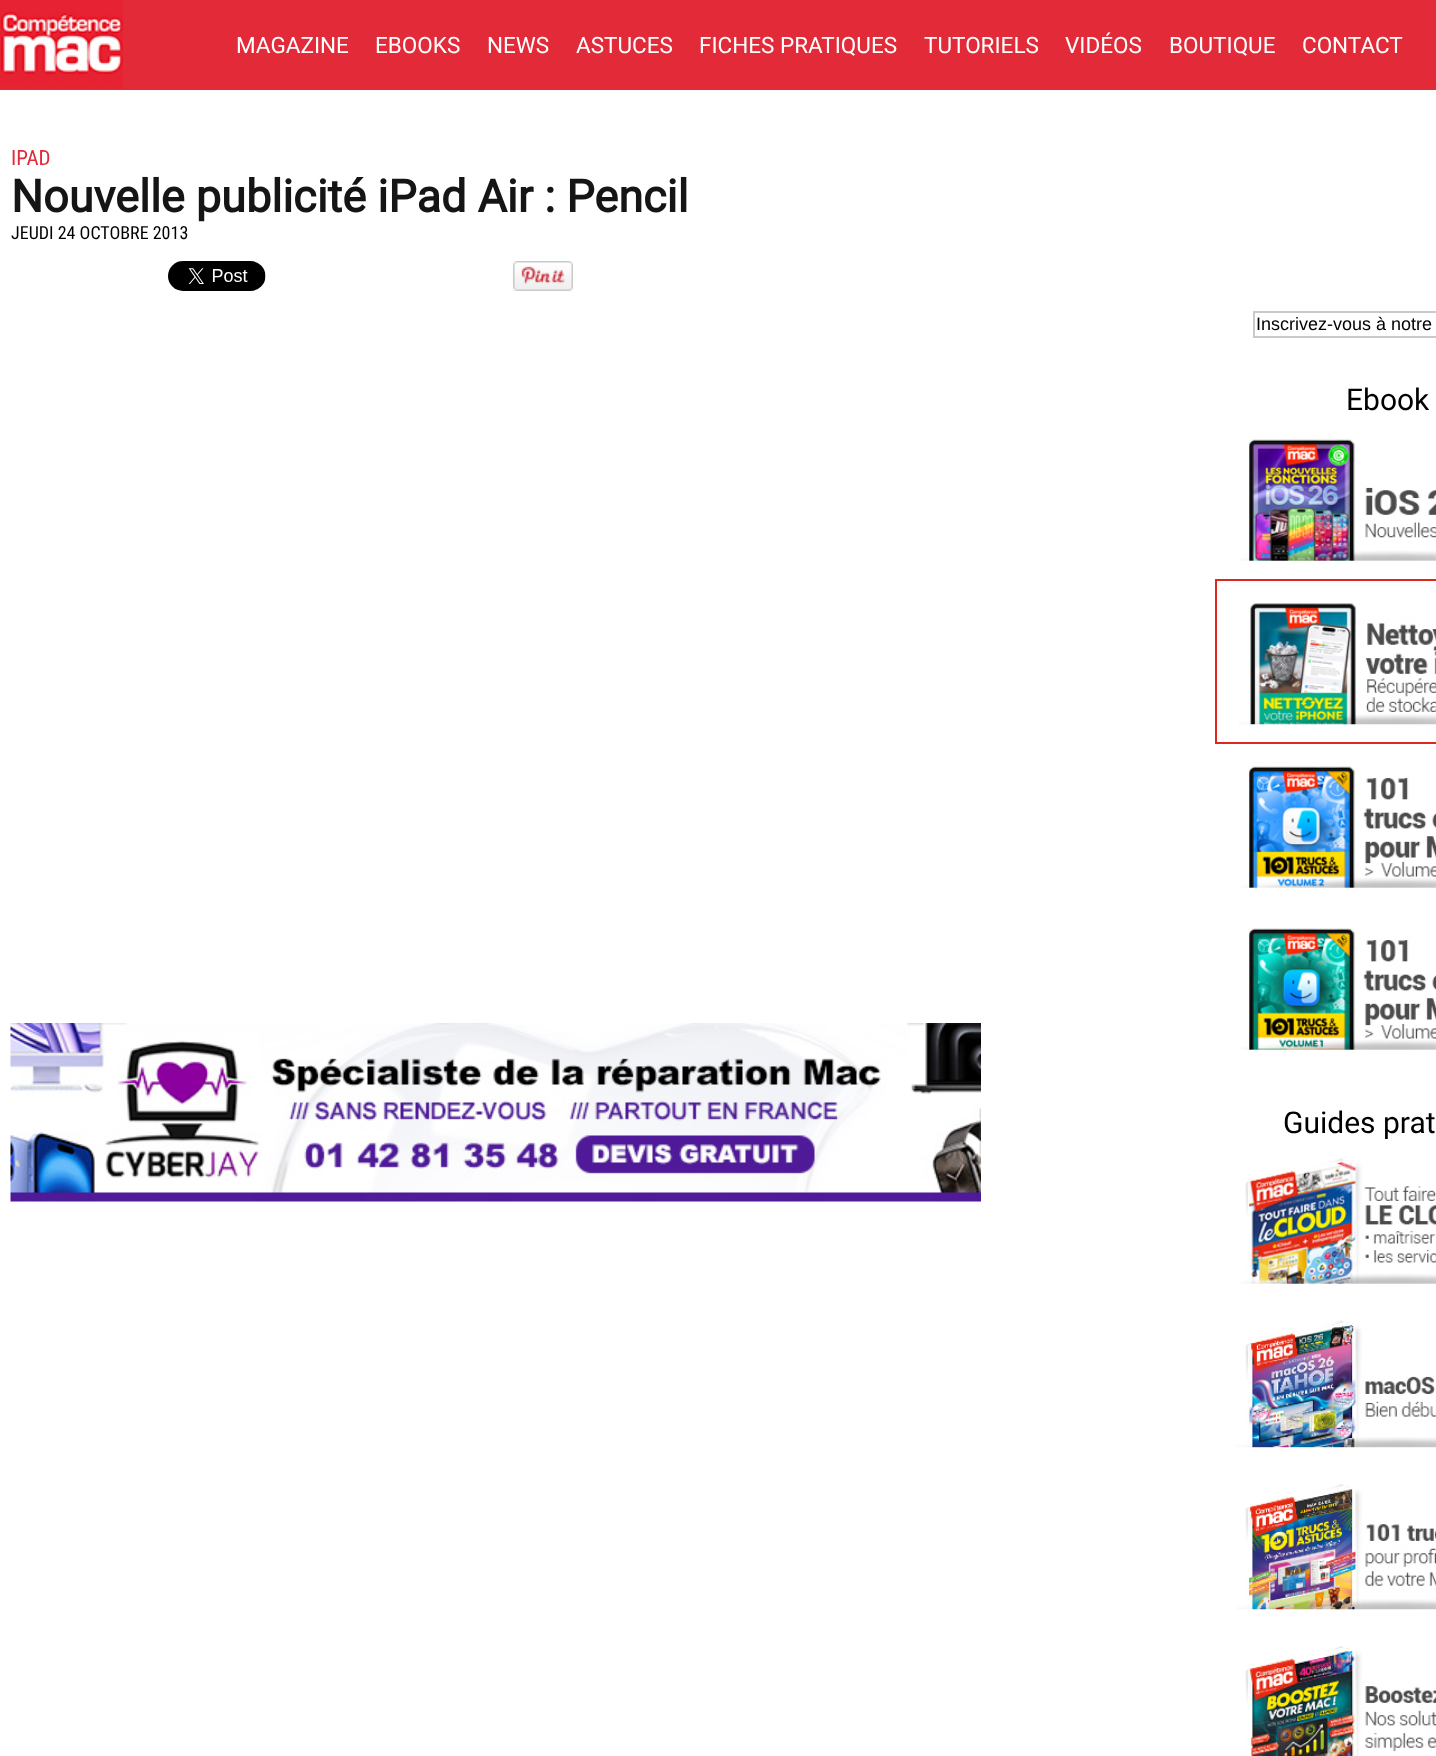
<!DOCTYPE html>
<meta charset="utf-8">
<style>body { margin: 0 } canvas { display: block }</style>
<canvas id="canvas" width="1436" height="1756"></canvas>
<img id="img1" src="img_01.png" hidden>
<img id="img2" src="img_02.png" hidden>
<img id="img3" src="img_03.png" hidden>
<img id="img4" src="img_04.png" hidden>
<img id="img5" src="img_05.png" hidden>
<img id="img6" src="img_06.png" hidden>
<img id="img7" src="img_07.png" hidden>
<img id="img8" src="img_08.png" hidden>
<img id="img9" src="img_09.png" hidden>
<img id="img10" src="img_10.png" hidden>
<img id="img11" src="img_11.png" hidden>
<img id="img12" src="img_12.png" hidden>
<script>
window.onload = function () {
	const canvas = document.getElementById("canvas");
	const ctx = canvas.getContext("2d");
	ctx.miterLimit = 4;
	ctx.fontKerning = "normal";
	function txt(s, x, y) {
		ctx.fillText(s, x, y);
	}
	function fill(x, y, w, h) {
		ctx.fillRect(x, y, w, h);
	}
	function img(id, x, y, w, h) {
		ctx.drawImage(document.getElementById(id), x, y, w, h);
	}

	ctx.fillStyle = "#FFFFFF";
	fill(0, 0, 1436, 1756);
	ctx.fillStyle = "#E22A39";
	fill(0, 0, 1436, 90);
	img("img1", 0, 0, 123, 89);
	img("img2", 168, 261, 98, 30);
	img("img3", 513, 261, 60, 30);
	img("img4", 10, 1023, 971, 179);
	ctx.strokeStyle = "#C9C9C9";
	ctx.lineWidth = 2;
	ctx.strokeRect(1254, 312, 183, 25);
	img("img5", 1241, 439, 195, 122);
	ctx.strokeStyle = "#DC281E";
	ctx.strokeRect(1216, 580, 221, 163);
	img("img6", 1238, 603, 198, 122);
	img("img7", 1241, 766, 195, 122);
	img("img8", 1241, 928, 195, 122);
	img("img9", 1241, 1158, 195, 126);
	img("img10", 1236, 1320, 200, 128);
	img("img11", 1236, 1484, 200, 126);
	img("img12", 1245, 1646, 191, 110);
	ctx.font = "22.5px Roboto";
	ctx.fillStyle = "#FFFFFF";
	txt("MAGAZINE", 236, 53);
	txt("EBOOKS", 375, 53);
	txt("NEWS", 487, 53);
	txt("ASTUCES", 576, 53);
	txt("FICHES PRATIQUES", 699, 53);
	txt("TUTORIELS", 924, 53);
	txt("VIDÉOS", 1065, 53);
	txt("BOUTIQUE", 1169, 53);
	txt("CONTACT", 1302, 53);
	ctx.font = "21px Roboto Condensed";
	ctx.fillStyle = "#E22A39";
	txt("IPAD", 11, 165);
	ctx.font = "bold 45px Roboto";
	ctx.fillStyle = "#151515";
	txt("Nouvelle publicité iPad Air : Pencil", 11, 212);
	ctx.font = "18px Roboto Condensed";
	ctx.fillStyle = "#000000";
	txt("JEUDI 24 OCTOBRE 2013", 11, 239);
	ctx.font = "18px Liberation Sans";
	txt("Inscrivez-vous à notre", 1256, 330);
	ctx.font = "30px Roboto";
	txt("Ebook", 1346, 410);
	txt("Guides prat", 1283, 1133);
};
</script>
